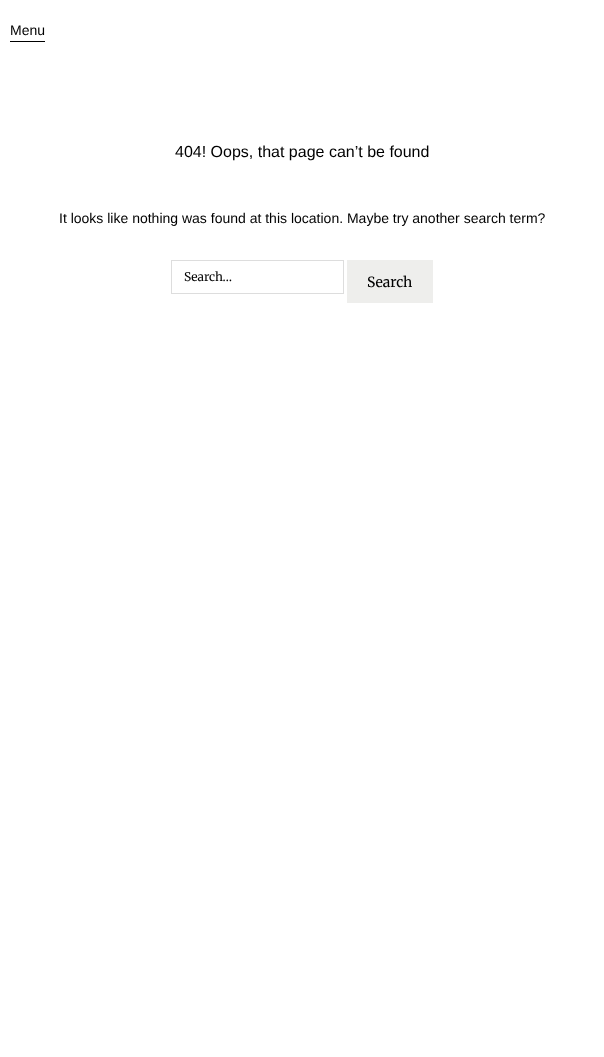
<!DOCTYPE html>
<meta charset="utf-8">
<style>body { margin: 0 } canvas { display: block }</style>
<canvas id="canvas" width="604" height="1057"></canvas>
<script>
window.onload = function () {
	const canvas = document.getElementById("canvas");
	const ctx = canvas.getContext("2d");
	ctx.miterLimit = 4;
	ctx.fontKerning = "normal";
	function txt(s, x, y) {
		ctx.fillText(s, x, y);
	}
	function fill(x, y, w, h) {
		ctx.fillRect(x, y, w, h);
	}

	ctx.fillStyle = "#FFFFFF";
	fill(0, 0, 604, 1057);
	ctx.fillStyle = "#000000";
	fill(10, 41, 35, 1);
	ctx.strokeStyle = "#DDDDDD";
	ctx.strokeRect(171.5, 260.5, 172, 33);
	ctx.fillStyle = "#EEEEEC";
	fill(347, 260, 86, 43);
	ctx.font = "14px Liberation Sans";
	ctx.fillStyle = "#000000";
	txt("Menu", 10, 35);
	ctx.font = "16px Liberation Sans";
	txt("404! Oops, that page can’t be found", 175, 157);
	ctx.font = "14px Liberation Sans";
	txt("It looks like nothing was found at this location. Maybe try another search term?", 59, 223);
	ctx.font = "12px Merriweather";
	txt("Search…", 184, 281);
	ctx.font = "14px Merriweather";
	txt("Search", 367, 287);
};
</script>
